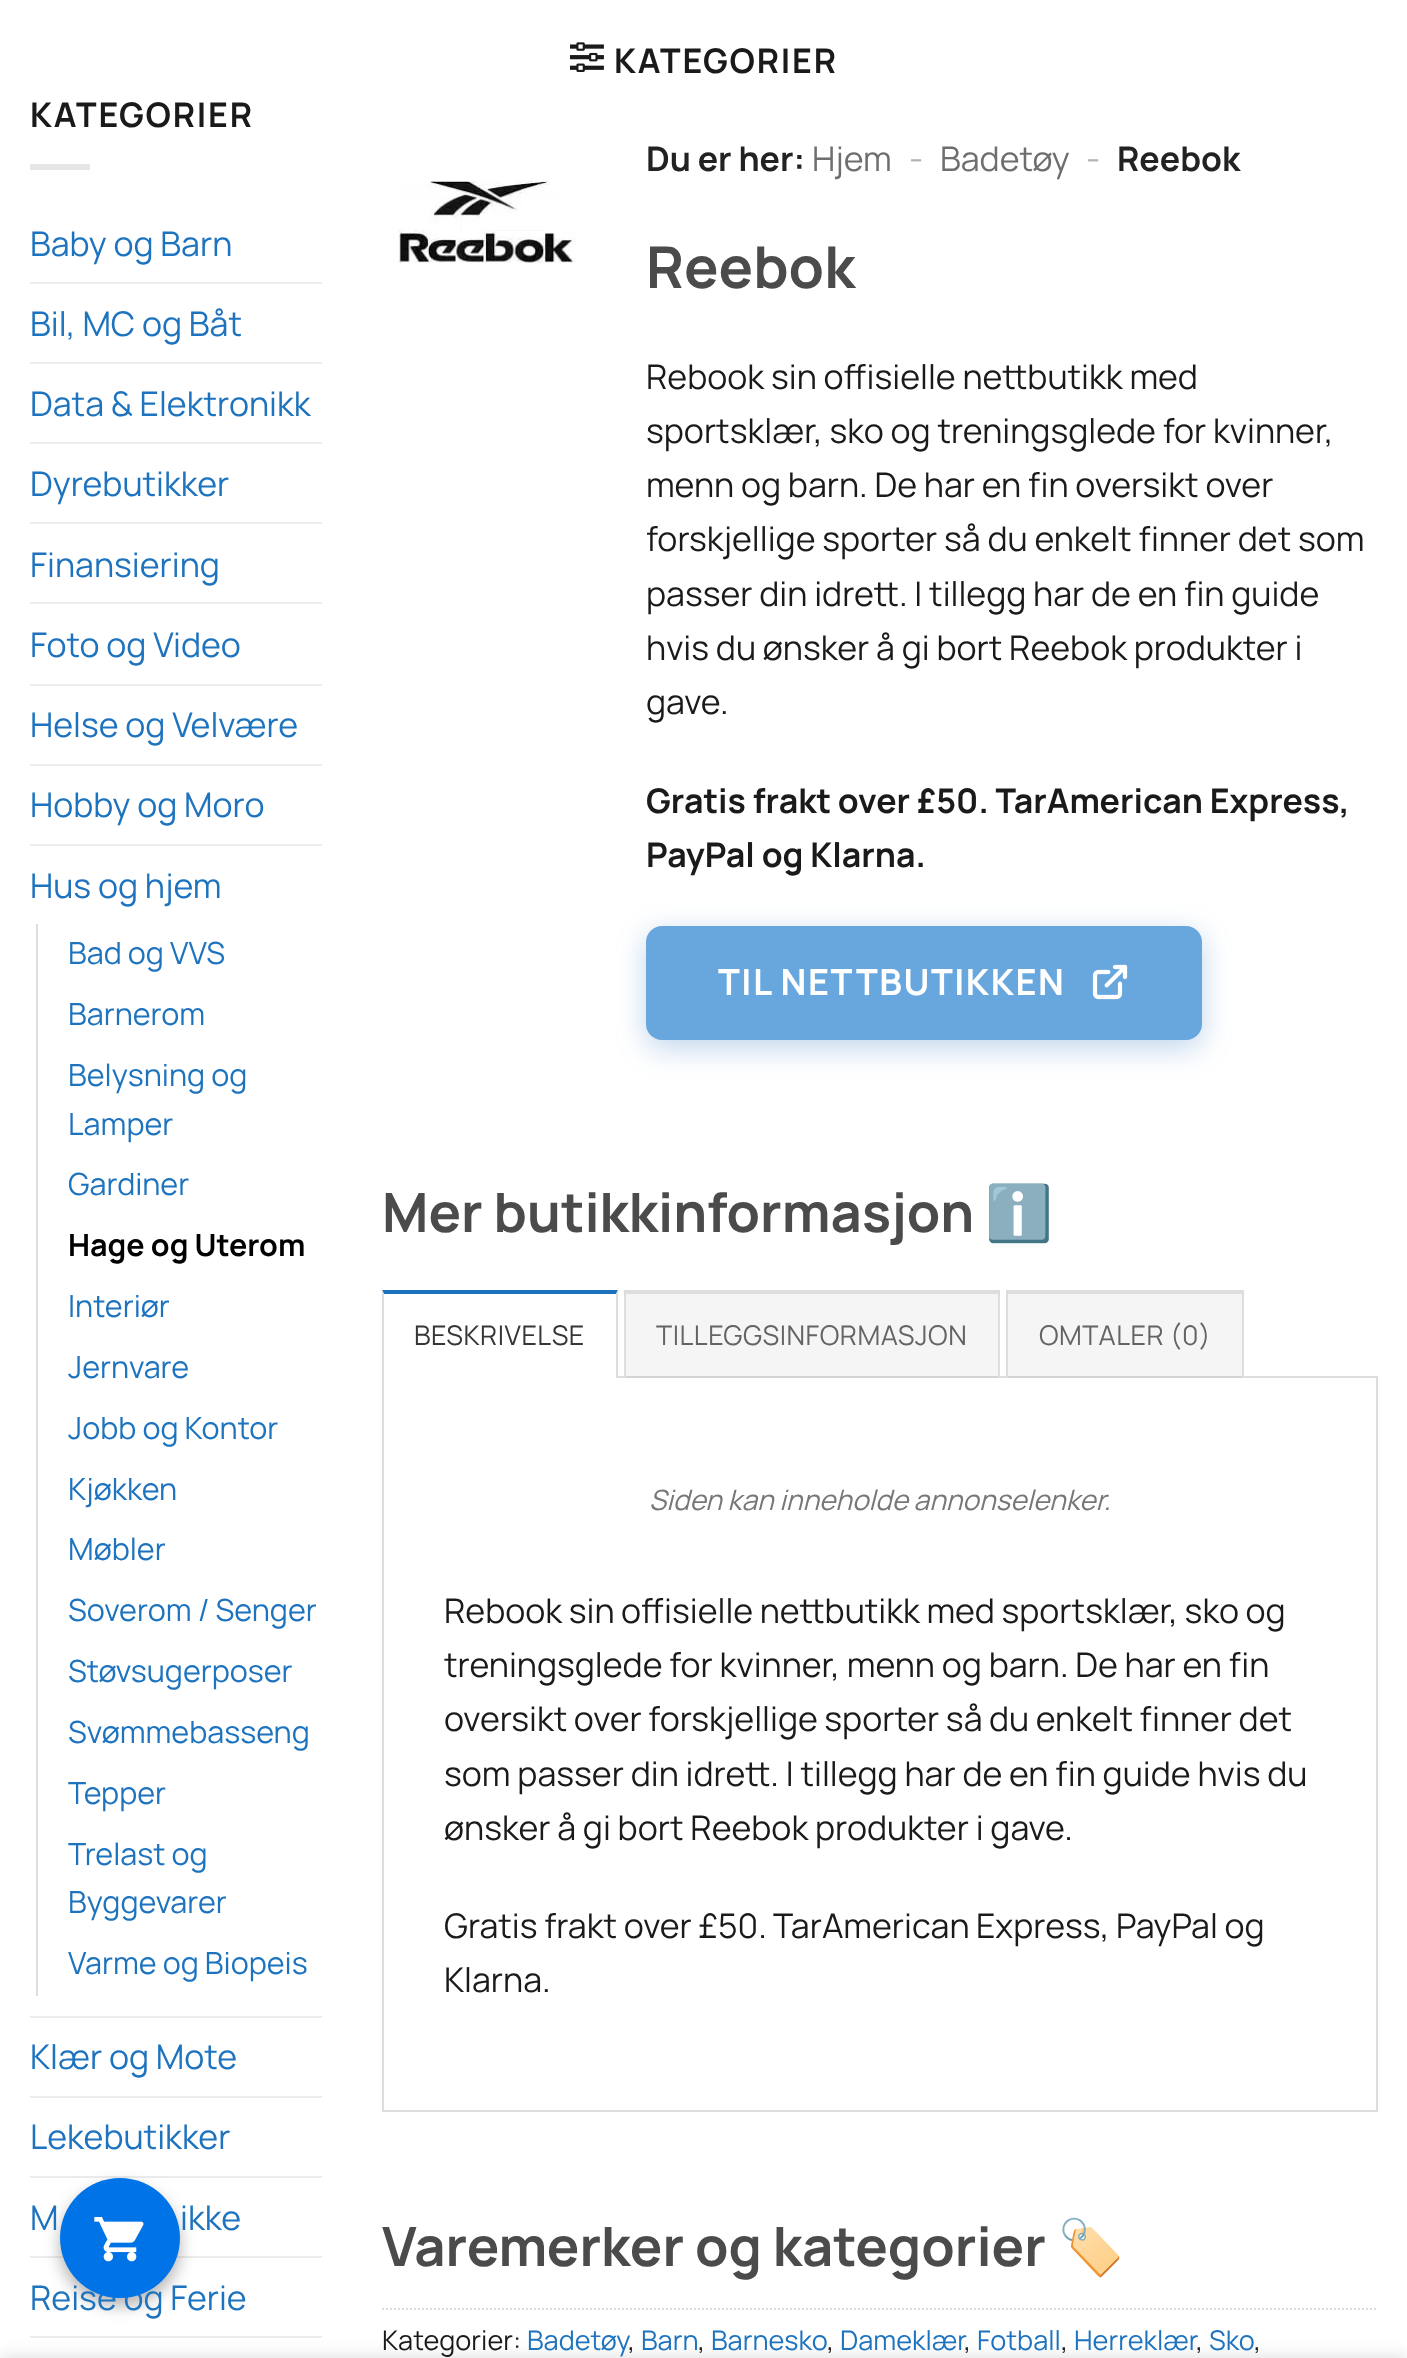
<!DOCTYPE html>
<meta charset="utf-8">
<style>body { margin: 0 } canvas { display: block }</style>
<canvas id="canvas" width="1407" height="2358"></canvas>
<img id="img1" src="img_01.png" hidden>
<img id="img2" src="img_02.png" hidden>
<img id="img3" src="img_03.png" hidden>
<img id="img4" src="img_04.png" hidden>
<script>
window.onload = function () {
	const canvas = document.getElementById("canvas");
	const ctx = canvas.getContext("2d");
	ctx.miterLimit = 4;
	ctx.fontKerning = "normal";
	function txt(s, x, y) {
		ctx.fillText(s, x, y);
	}
	function fill(x, y, w, h) {
		ctx.fillRect(x, y, w, h);
	}
	function round(x, y, w, h, r) {
		ctx.beginPath();
		ctx.roundRect(x, y, w, h, r);
		ctx.fill();
	}
	function img(id, x, y, w, h) {
		ctx.drawImage(document.getElementById(id), x, y, w, h);
	}

	ctx.fillStyle = "#FFFFFF";
	fill(0, 0, 1407, 2358);
	img("img1", 570, 42, 34, 30);
	ctx.fillStyle = "#E6E6E6";
	fill(30, 164, 60, 6);
	ctx.fillStyle = "#ECECEC";
	fill(30, 282, 292, 2);
	fill(30, 362, 292, 2);
	fill(30, 442, 292, 2);
	fill(30, 522, 292, 2);
	fill(30, 602, 292, 2);
	fill(30, 684, 292, 2);
	fill(30, 764, 292, 2);
	fill(30, 844, 292, 2);
	ctx.fillStyle = "#DDDDDD";
	fill(36, 924, 2, 1072);
	ctx.fillStyle = "#ECECEC";
	fill(30, 2016, 292, 2);
	fill(30, 2096, 292, 2);
	fill(30, 2176, 292, 2);
	fill(30, 2256, 292, 2);
	fill(30, 2336, 292, 2);
	img("img2", 398, 181, 178, 82);
	ctx.fillStyle = "rgba(0, 86, 179, 0.25)";
	ctx.filter = "blur(15px)";
	ctx.beginPath();
	ctx.roundRect(646, 934, 556, 114, 16);
	ctx.fill();
	ctx.filter = "none";
	ctx.fillStyle = "#67A7DE";
	round(646, 926, 556, 114, 16);
	img("img3", 1092, 964, 36, 36);
	ctx.strokeStyle = "#DDDDDD";
	ctx.lineWidth = 2;
	ctx.strokeRect(383, 1377, 994, 734);
	ctx.fillStyle = "#FFFFFF";
	fill(382, 1376, 236, 2);
	ctx.fillStyle = "#1E73BE";
	ctx.beginPath();
	ctx.moveTo(382, 1290);
	ctx.lineTo(618, 1290);
	ctx.lineTo(616, 1294);
	ctx.lineTo(384, 1294);
	ctx.closePath();
	ctx.fill();
	ctx.fillStyle = "#DDDDDD";
	ctx.beginPath();
	ctx.moveTo(618, 1290);
	ctx.lineTo(618, 1378);
	ctx.lineTo(616, 1378);
	ctx.lineTo(616, 1294);
	ctx.closePath();
	ctx.fill();
	ctx.beginPath();
	ctx.moveTo(382, 1378);
	ctx.lineTo(382, 1290);
	ctx.lineTo(384, 1294);
	ctx.lineTo(384, 1378);
	ctx.closePath();
	ctx.fill();
	ctx.fillStyle = "rgba(0, 0, 0, 0.04)";
	fill(626, 1294, 372, 84);
	ctx.fillStyle = "#DDDDDD";
	fill(624, 1290, 376, 4);
	fill(998, 1290, 2, 88);
	fill(624, 1290, 2, 88);
	ctx.fillStyle = "rgba(0, 0, 0, 0.04)";
	fill(1008, 1294, 234, 84);
	ctx.fillStyle = "#DDDDDD";
	fill(1006, 1290, 238, 4);
	fill(1242, 1290, 2, 88);
	fill(1006, 1290, 2, 88);
	ctx.beginPath();
	ctx.moveTo(382, 2309);
	ctx.lineTo(1378, 2309);
	ctx.setLineDash([2, 2]);
	ctx.stroke();
	ctx.fillStyle = "rgba(0, 0, 0, 0.3)";
	ctx.filter = "blur(8px)";
	ctx.beginPath();
	ctx.roundRect(60, 2186, 120, 120, 60);
	ctx.fill();
	ctx.filter = "none";
	ctx.fillStyle = "rgba(0, 0, 0, 0.14)";
	ctx.filter = "blur(9px)";
	ctx.beginPath();
	ctx.rect(0, 2358, 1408, 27);
	ctx.fill();
	ctx.filter = "none";
	ctx.letterSpacing = "1.75px";
	ctx.font = "bold 33.9px Manrope";
	ctx.fillStyle = "#1A1A1A";
	txt("KATEGORIER", 614, 73);
	txt("KATEGORIER", 30, 127);
	ctx.letterSpacing = "0px";
	ctx.font = "33.9px Manrope";
	ctx.fillStyle = "#1E73BE";
	txt("Baby og Barn", 30, 256);
	txt("Bil, MC og Båt", 30, 336);
	txt("Data & Elektronikk", 30, 416);
	txt("Dyrebutikker", 30, 496);
	txt("Finansiering", 30, 577);
	txt("Foto og Video", 30, 657);
	txt("Helse og Velvære", 30, 737);
	txt("Hobby og Moro", 30, 817);
	txt("Hus og hjem", 30, 898);
	ctx.font = "30.5px Manrope";
	txt("Bad og VVS", 68, 964);
	txt("Barnerom", 68, 1025);
	txt("Belysning og", 68, 1086);
	txt("Lamper", 68, 1135);
	txt("Gardiner", 68, 1195);
	ctx.font = "bold 30.5px Manrope";
	ctx.fillStyle = "#000000";
	txt("Hage og Uterom", 68, 1256);
	ctx.font = "30.5px Manrope";
	ctx.fillStyle = "#1E73BE";
	txt("Interiør", 68, 1317);
	txt("Jernvare", 68, 1378);
	txt("Jobb og Kontor", 68, 1439);
	txt("Kjøkken", 68, 1500);
	txt("Møbler", 68, 1560);
	txt("Soverom / Senger", 68, 1621);
	txt("Støvsugerposer", 68, 1682);
	txt("Svømmebasseng", 68, 1743);
	txt("Tepper", 68, 1804);
	txt("Trelast og", 68, 1865);
	txt("Byggevarer", 68, 1913);
	txt("Varme og Biopeis", 68, 1974);
	ctx.font = "33.9px Manrope";
	txt("Klær og Mote", 30, 2069);
	txt("Lekebutikker", 30, 2149);
	txt("M", 30, 2230);
	txt("ikke", 180, 2230);
	txt("Reise og Ferie", 30, 2310);
	ctx.font = "bold 33.9px Manrope";
	ctx.fillStyle = "#222222";
	txt("Du er her:", 646, 171);
	ctx.font = "33.9px Manrope";
	ctx.fillStyle = "#6E6E6E";
	txt("Hjem", 812, 171);
	ctx.fillStyle = "#B2B2B2";
	txt("-", 909, 171);
	ctx.fillStyle = "#6E6E6E";
	txt("Badetøy", 940, 171);
	ctx.fillStyle = "#B2B2B2";
	txt("-", 1086, 171);
	ctx.font = "bold 33.9px Manrope";
	ctx.fillStyle = "#222222";
	txt("Reebok", 1117, 171);
	ctx.font = "bold 57.5px Manrope";
	ctx.fillStyle = "#4B4B4B";
	txt("Reebok", 646, 288);
	ctx.font = "33.9px Manrope";
	ctx.fillStyle = "#1A1A1A";
	txt("Rebook sin offisielle nettbutikk med", 646, 389);
	txt("sportsklær, sko og treningsglede for kvinner,", 646, 443);
	txt("menn og barn. De har en fin oversikt over", 646, 497);
	txt("forskjellige sporter så du enkelt finner det som", 646, 551);
	txt("passer din idrett. I tillegg har de en fin guide", 646, 606);
	txt("hvis du ønsker å gi bort Reebok produkter i", 646, 660);
	txt("gave.", 646, 714);
	ctx.font = "bold 33.9px Manrope";
	txt("Gratis frakt over £50. TarAmerican Express,", 646, 813);
	txt("PayPal og Klarna.", 646, 867);
	ctx.letterSpacing = "1.5px";
	ctx.font = "bold 36px Manrope";
	ctx.fillStyle = "#FFFFFF";
	txt("TIL NETTBUTIKKEN", 718, 995);
	ctx.letterSpacing = "0px";
	ctx.font = "bold 54.25px Manrope";
	ctx.fillStyle = "#4B4B4B";
	txt("Mer butikkinformasjon", 382, 1232);
	ctx.font = "bold 54.25px Noto Color Emoji";
	txt("ℹ️", 985, 1232);
	ctx.letterSpacing = "0.5px";
	ctx.font = "27.1px Manrope";
	ctx.fillStyle = "#363636";
	txt("BESKRIVELSE", 414, 1345);
	ctx.fillStyle = "#646464";
	txt("TILLEGGSINFORMASJON", 656, 1345);
	txt("OMTALER (0)", 1039, 1345);
	ctx.letterSpacing = "0px";
	ctx.font = "italic 28px Manrope";
	ctx.fillStyle = "#777777";
	txt("Siden kan inneholde annonselenker.", 649, 1510);
	ctx.wordSpacing = "-0.25px";
	ctx.font = "33.9px Manrope";
	ctx.fillStyle = "#1A1A1A";
	txt("Rebook sin offisielle nettbutikk med sportsklær, sko og", 444, 1623);
	ctx.wordSpacing = "0px";
	txt("treningsglede for kvinner, menn og barn. De har en fin", 444, 1677);
	ctx.wordSpacing = "-0.25px";
	txt("oversikt over forskjellige sporter så du enkelt finner det", 444, 1731);
	ctx.wordSpacing = "0px";
	txt("som passer din idrett. I tillegg har de en fin guide hvis du", 444, 1786);
	txt("ønsker å gi bort Reebok produkter i gave.", 444, 1840);
	txt("Gratis frakt over £50.", 444, 1938);
	ctx.wordSpacing = "-0.25px";
	txt("TarAmerican Express, PayPal og", 773, 1938);
	ctx.wordSpacing = "0px";
	txt("Klarna.", 444, 1992);
	ctx.font = "bold 54.25px Manrope";
	ctx.fillStyle = "#4B4B4B";
	txt("Varemerker og kategorier", 382, 2266);
	ctx.font = "bold 54.25px Noto Color Emoji";
	txt("🏷️", 1057, 2266);
	ctx.font = "27.1px Manrope";
	ctx.fillStyle = "#1A1A1A";
	txt("Kategorier:", 382, 2350);
	ctx.fillStyle = "#1E73BE";
	txt("Badetøy", 527, 2350);
	ctx.fillStyle = "#1A1A1A";
	txt(",", 628, 2350);
	ctx.fillStyle = "#1E73BE";
	txt("Barn", 641, 2350);
	ctx.fillStyle = "#1A1A1A";
	txt(",", 698, 2350);
	ctx.fillStyle = "#1E73BE";
	txt("Barnesko", 711, 2350);
	ctx.fillStyle = "#1A1A1A";
	txt(",", 827, 2350);
	ctx.fillStyle = "#1E73BE";
	txt("Dameklær", 840, 2350);
	ctx.fillStyle = "#1A1A1A";
	txt(",", 964, 2350);
	ctx.fillStyle = "#1E73BE";
	txt("Fotball", 977, 2350);
	ctx.fillStyle = "#1A1A1A";
	txt(",", 1061, 2350);
	ctx.fillStyle = "#1E73BE";
	txt("Herreklær", 1074, 2350);
	ctx.fillStyle = "#1A1A1A";
	txt(",", 1196, 2350);
	ctx.fillStyle = "#1E73BE";
	txt("Sko", 1209, 2350);
	ctx.fillStyle = "#1A1A1A";
	txt(",", 1254, 2350);
	ctx.fillStyle = "#0073E6";
	ctx.beginPath();
	ctx.arc(120, 2238, 60, 0, Math.PI * 2);
	ctx.fill();
	img("img4", 94, 2217, 50, 45);
};
</script>
